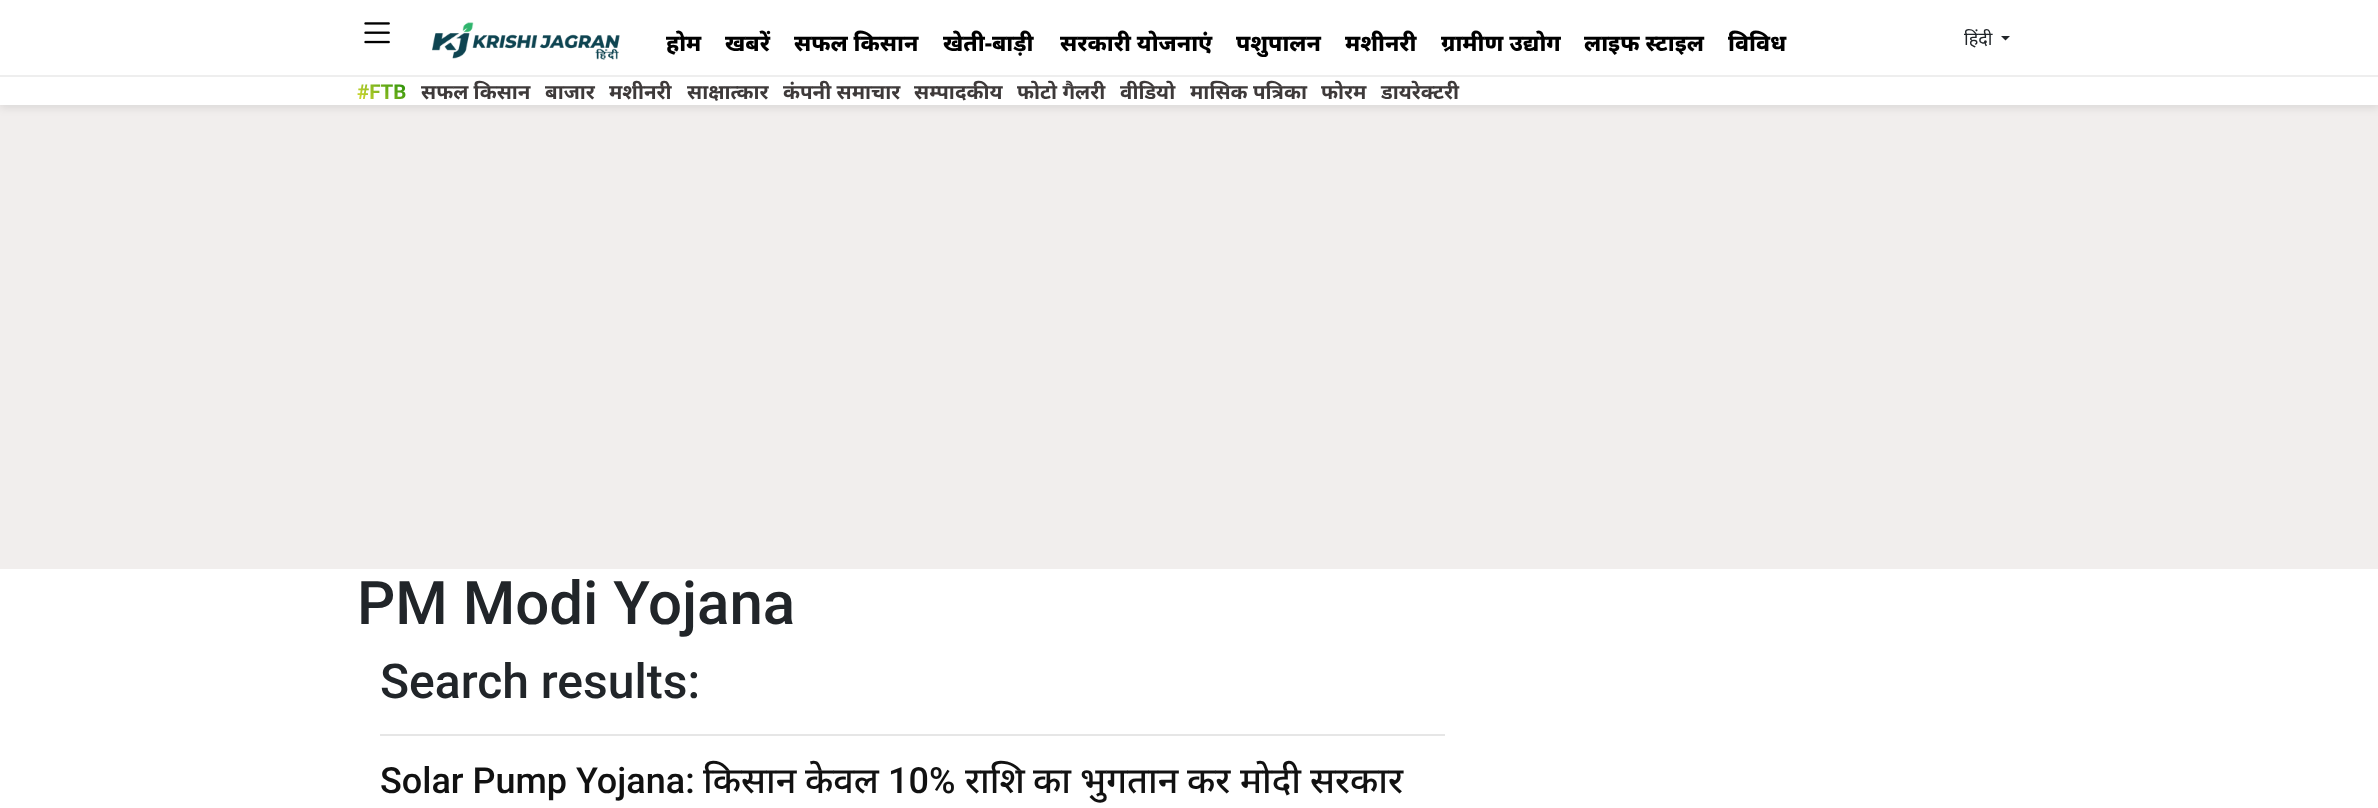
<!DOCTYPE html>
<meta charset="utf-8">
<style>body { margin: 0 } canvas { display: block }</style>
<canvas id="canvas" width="2378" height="808"></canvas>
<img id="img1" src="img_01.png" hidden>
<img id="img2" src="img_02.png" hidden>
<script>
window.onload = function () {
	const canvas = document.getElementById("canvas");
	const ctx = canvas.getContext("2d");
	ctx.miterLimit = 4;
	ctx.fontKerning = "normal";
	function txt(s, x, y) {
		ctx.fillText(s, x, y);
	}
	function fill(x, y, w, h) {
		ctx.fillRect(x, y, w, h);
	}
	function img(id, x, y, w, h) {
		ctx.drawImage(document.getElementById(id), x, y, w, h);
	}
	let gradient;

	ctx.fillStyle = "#FFFFFF";
	fill(0, 0, 2378, 808);
	ctx.fillStyle = "#F1EEED";
	fill(0, 105, 2378, 464);
	ctx.fillStyle = "rgba(0, 0, 0, 0.09)";
	ctx.filter = "blur(4.5px)";
	ctx.beginPath();
	ctx.rect(0, 3, 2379, 105);
	ctx.fill();
	ctx.filter = "none";
	ctx.fillStyle = "#FFFFFF";
	fill(0, 0, 2378, 105);
	img("img1", 364, 22, 26, 22);
	img("img2", 432, 22, 188, 38);
	ctx.fillStyle = "#212529";
	ctx.beginPath();
	ctx.moveTo(2001, 36);
	ctx.lineTo(2010, 36);
	ctx.lineTo(2005.5, 40.5);
	ctx.closePath();
	ctx.fill();
	ctx.fillStyle = "#EEEEEE";
	fill(0, 75, 2378, 2);
	ctx.fillStyle = "#E6E6E6";
	fill(380, 734, 1065, 2);
	ctx.font = "800 22.75px Noto Sans";
	ctx.fillStyle = "#000000";
	txt("होम", 666, 51);
	txt("खबरें", 725, 51);
	txt("सफल किसान", 794, 51);
	txt("खेती-बाड़ी", 943, 51);
	txt("सरकारी योजनाएं", 1060, 51);
	txt("पशुपालन", 1236, 51);
	txt("मशीनरी", 1345, 51);
	txt("ग्रामीण उद्योग", 1441, 51);
	txt("लाइफ स्टाइल", 1584, 51);
	txt("विविध", 1728, 51);
	ctx.font = "18px Noto Sans";
	ctx.fillStyle = "#212529";
	txt("हिंदी", 1964, 45);
	ctx.font = "bold 20.5px Roboto";
	gradient = ctx.createLinearGradient(358, 115, 405, 68);
	gradient.addColorStop(0, "#FFEB3B");
	gradient.addColorStop(1, "#008000");
	ctx.fillStyle = gradient;
	txt("#FTB", 357, 99);
	ctx.font = "bold 20.5px Noto Sans";
	ctx.fillStyle = "#3E3A3A";
	txt("सफल किसान", 421, 99);
	txt("बाजार", 545, 99);
	txt("मशीनरी", 609, 99);
	txt("साक्षात्कार", 687, 99);
	txt("कंपनी समाचार", 783, 99);
	txt("सम्पादकीय", 914, 99);
	txt("फोटो गैलरी", 1017, 99);
	txt("वीडियो", 1120, 99);
	txt("मासिक पत्रिका", 1190, 99);
	txt("फोरम", 1321, 99);
	txt("डायरेक्टरी", 1381, 99);
	ctx.font = "500 60px Roboto";
	ctx.fillStyle = "#212529";
	txt("PM Modi Yojana", 357, 624);
	ctx.font = "500 48px Roboto";
	txt("Search results:", 380, 698);
	ctx.font = "500 36px Roboto";
	ctx.fillStyle = "#111111";
	txt("Solar Pump Yojana:", 380, 793);
	ctx.font = "500 36px Noto Sans";
	txt("किसान", 703, 793);
	txt("केवल", 805, 793);
	ctx.font = "500 36px Roboto";
	txt("10%", 888, 793);
	ctx.font = "500 36px Noto Sans";
	txt("राशि", 965, 793);
	txt("का", 1033, 793);
	txt("भुगतान", 1080, 793);
	txt("कर", 1187, 793);
	txt("मोदी", 1240, 793);
	txt("सरकार", 1310, 793);
};
</script>
